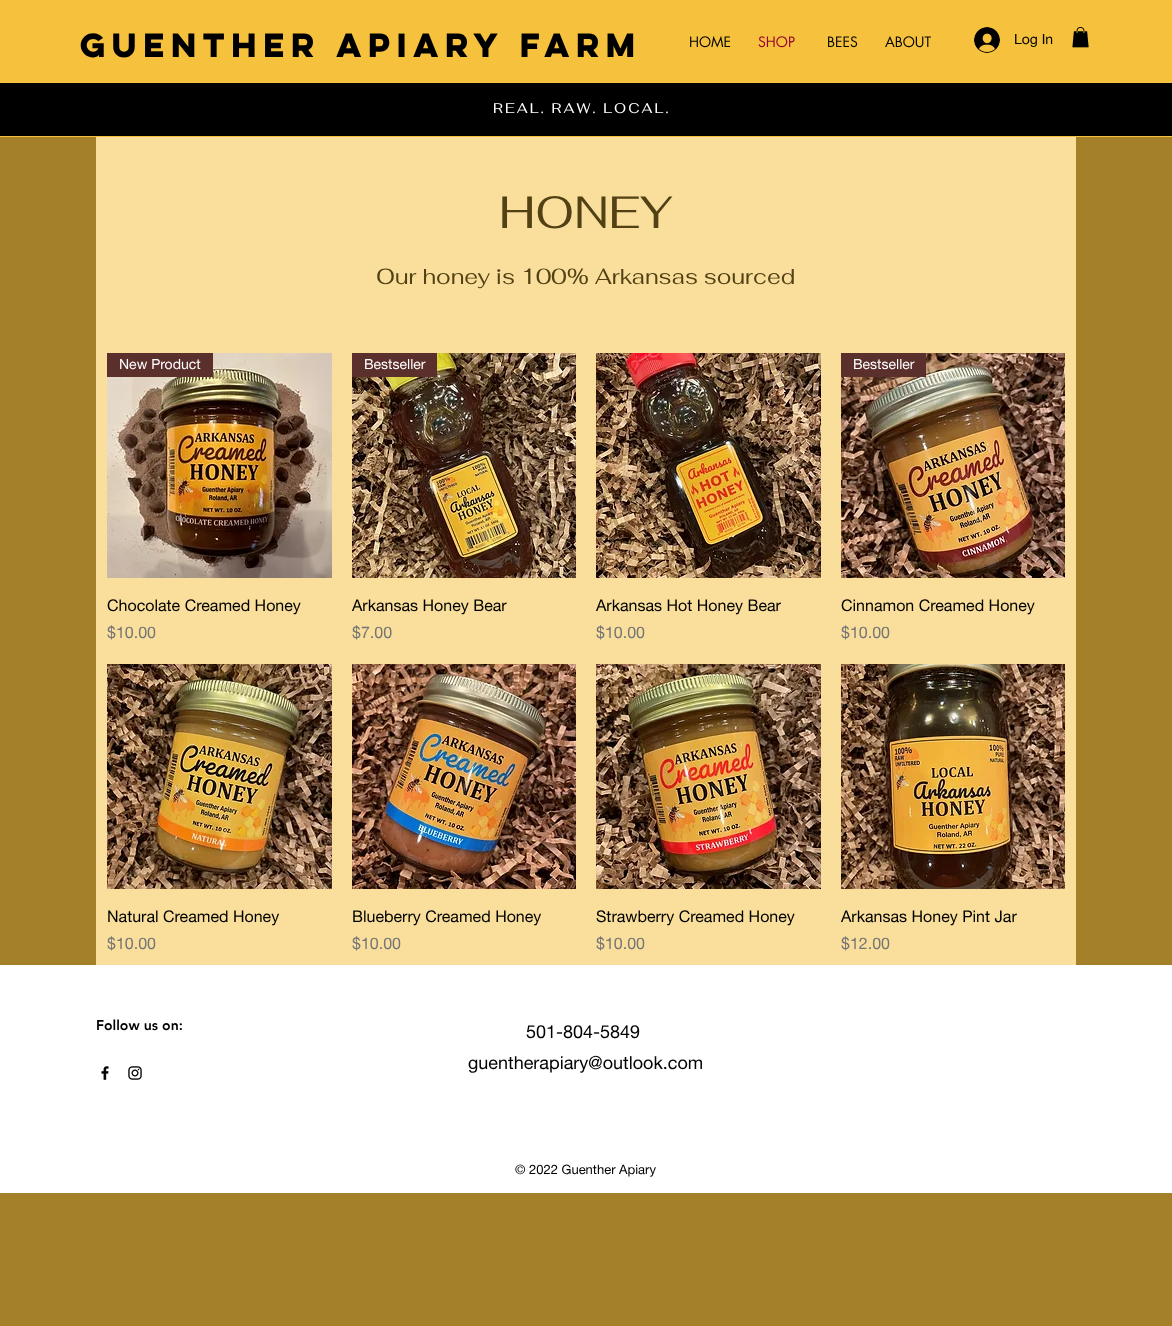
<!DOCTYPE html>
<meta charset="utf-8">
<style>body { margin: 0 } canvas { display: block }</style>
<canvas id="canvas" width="1172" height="1326"></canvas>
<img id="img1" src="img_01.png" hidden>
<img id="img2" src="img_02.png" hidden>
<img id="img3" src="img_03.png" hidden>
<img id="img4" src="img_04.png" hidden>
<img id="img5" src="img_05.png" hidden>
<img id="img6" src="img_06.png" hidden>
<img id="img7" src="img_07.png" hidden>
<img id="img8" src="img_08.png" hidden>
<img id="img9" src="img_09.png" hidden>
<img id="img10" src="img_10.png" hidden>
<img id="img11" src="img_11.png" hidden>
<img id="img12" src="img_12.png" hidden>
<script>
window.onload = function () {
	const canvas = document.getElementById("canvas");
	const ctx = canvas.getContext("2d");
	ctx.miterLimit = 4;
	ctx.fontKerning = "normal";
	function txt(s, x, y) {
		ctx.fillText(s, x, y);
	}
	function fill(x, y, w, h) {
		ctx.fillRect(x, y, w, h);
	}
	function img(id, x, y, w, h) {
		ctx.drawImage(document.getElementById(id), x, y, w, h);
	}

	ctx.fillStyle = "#A48129";
	fill(0, 0, 1172, 1326);
	ctx.fillStyle = "#F6C23D";
	fill(0, 0, 1172, 137);
	img("img1", 974, 27, 26, 26);
	img("img2", 1072, 27, 17, 21);
	ctx.fillStyle = "#000000";
	fill(0, 83, 1172, 53);
	ctx.fillStyle = "#F9DF9B";
	fill(96, 137, 980, 828);
	img("img3", 107, 353, 225, 225);
	ctx.fillStyle = "#5B2F2C";
	fill(107, 353, 106, 24);
	img("img4", 352, 353, 224, 225);
	fill(352, 353, 85, 24);
	img("img5", 596, 353, 225, 225);
	img("img6", 841, 353, 224, 225);
	fill(841, 353, 85, 24);
	img("img7", 107, 664, 225, 225);
	img("img8", 352, 664, 224, 225);
	img("img9", 596, 664, 225, 225);
	img("img10", 841, 664, 224, 225);
	ctx.fillStyle = "#FFFFFF";
	fill(0, 965, 1172, 228);
	img("img11", 101, 1066, 8, 14);
	img("img12", 128, 1066, 14, 14);
	ctx.font = "bold 30px 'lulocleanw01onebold'";
	ctx.fillStyle = "#000000";
	txt("Guenther Apiary Farm", 80, 57);
	ctx.font = "14px futura";
	txt("HOME", 689, 47);
	ctx.fillStyle = "#950032";
	txt("SHOP", 758, 47);
	ctx.fillStyle = "#000000";
	txt("BEES", 827, 47);
	txt("ABOUT", 885, 47);
	ctx.font = "14px helvetica neue";
	txt("Log In", 1014, 44);
	ctx.letterSpacing = "2.1px";
	ctx.font = "14px Fahkwang";
	ctx.fillStyle = "#FFFFFF";
	txt("REAL. RAW. LOCAL.", 493, 113);
	ctx.letterSpacing = "0px";
	ctx.font = "45px Fahkwang";
	ctx.fillStyle = "#524114";
	txt("HONEY", 499, 228);
	ctx.font = "22px Fahkwang";
	txt("Our honey is 100% Arkansas sourced", 376, 284);
	ctx.font = "14px helvetica neue";
	ctx.fillStyle = "#FFFFFF";
	txt("New Product", 119, 369);
	ctx.font = "16px helvetica neue";
	ctx.fillStyle = "#000000";
	txt("Chocolate Creamed Honey", 107, 611);
	ctx.fillStyle = "#757575";
	txt("$10.00", 107, 638);
	ctx.font = "14px helvetica neue";
	ctx.fillStyle = "#FFFFFF";
	txt("Bestseller", 364, 369);
	ctx.font = "16px helvetica neue";
	ctx.fillStyle = "#000000";
	txt("Arkansas Honey Bear", 352, 611);
	ctx.fillStyle = "#757575";
	txt("$7.00", 352, 638);
	ctx.fillStyle = "#000000";
	txt("Arkansas Hot Honey Bear", 596, 611);
	ctx.fillStyle = "#757575";
	txt("$10.00", 596, 638);
	ctx.font = "14px helvetica neue";
	ctx.fillStyle = "#FFFFFF";
	txt("Bestseller", 853, 369);
	ctx.font = "16px helvetica neue";
	ctx.fillStyle = "#000000";
	txt("Cinnamon Creamed Honey", 841, 611);
	ctx.fillStyle = "#757575";
	txt("$10.00", 841, 638);
	ctx.fillStyle = "#000000";
	txt("Natural Creamed Honey", 107, 922);
	ctx.fillStyle = "#757575";
	txt("$10.00", 107, 949);
	ctx.fillStyle = "#000000";
	txt("Blueberry Creamed Honey", 352, 922);
	ctx.fillStyle = "#757575";
	txt("$10.00", 352, 949);
	ctx.fillStyle = "#000000";
	txt("Strawberry Creamed Honey", 596, 922);
	ctx.fillStyle = "#757575";
	txt("$10.00", 596, 949);
	ctx.fillStyle = "#000000";
	txt("Arkansas Honey Pint Jar", 841, 922);
	ctx.fillStyle = "#757575";
	txt("$12.00", 841, 949);
	ctx.font = "900 14px 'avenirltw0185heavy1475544'";
	ctx.fillStyle = "#000000";
	txt("Follow us on:", 96, 1030);
	ctx.font = "18px helvetica neue";
	txt("501-804-5849", 526, 1038);
	txt("guentherapiary@outlook.com", 468, 1069);
	ctx.font = "13px helvetica neue";
	txt("© 2022 Guenther Apiary", 515, 1174);
};
</script>
